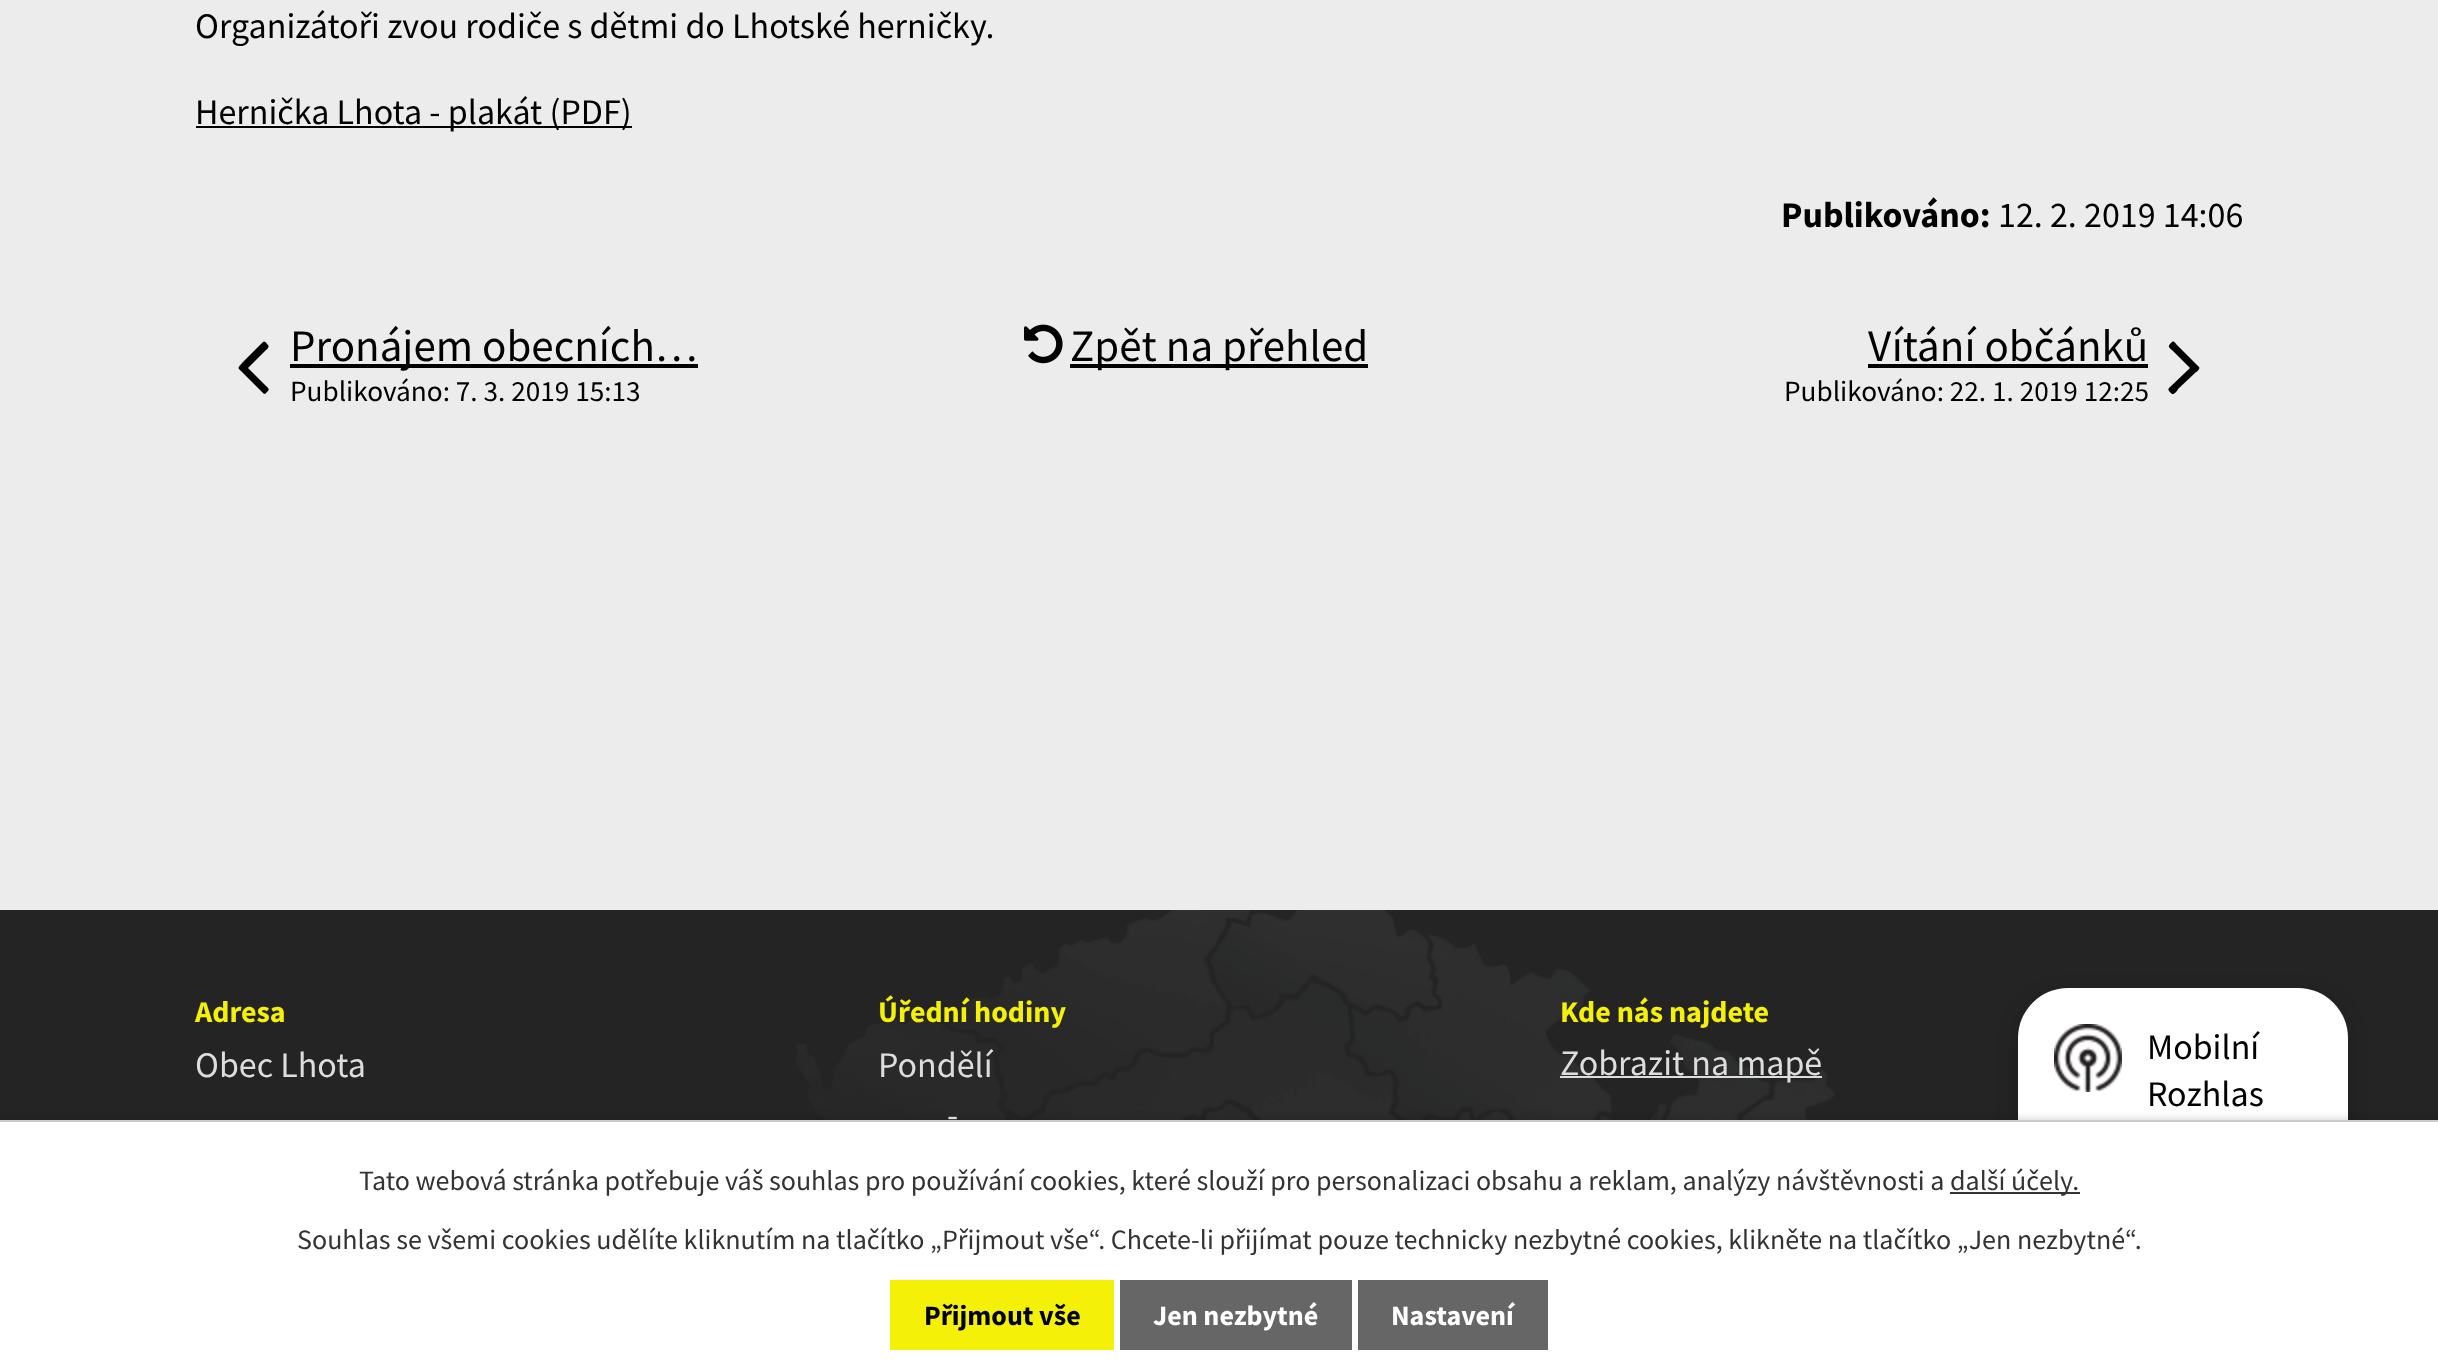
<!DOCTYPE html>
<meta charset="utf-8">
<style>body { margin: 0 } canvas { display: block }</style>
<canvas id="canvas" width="2438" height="1370"></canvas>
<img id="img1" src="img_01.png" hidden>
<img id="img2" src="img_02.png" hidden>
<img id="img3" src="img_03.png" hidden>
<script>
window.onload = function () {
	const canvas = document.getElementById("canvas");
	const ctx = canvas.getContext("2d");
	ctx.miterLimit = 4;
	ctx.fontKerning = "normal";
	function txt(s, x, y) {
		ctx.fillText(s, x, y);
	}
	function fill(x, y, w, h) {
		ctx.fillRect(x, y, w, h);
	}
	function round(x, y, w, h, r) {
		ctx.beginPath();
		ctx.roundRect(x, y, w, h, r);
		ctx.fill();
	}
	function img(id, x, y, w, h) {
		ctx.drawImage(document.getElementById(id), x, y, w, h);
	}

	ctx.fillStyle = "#ECECEC";
	fill(0, 0, 2438, 1370);
	ctx.fillStyle = "#000000";
	fill(196, 126, 436, 2);
	ctx.beginPath();
	ctx.moveTo(268, 345);
	ctx.bezierCurveTo(270, 347, 266, 350, 265, 351);
	ctx.lineTo(248, 368);
	ctx.lineTo(265, 385);
	ctx.bezierCurveTo(269, 389, 270, 389, 267, 392);
	ctx.bezierCurveTo(266, 393, 265, 395, 263, 393);
	ctx.lineTo(243, 373);
	ctx.bezierCurveTo(237, 367, 237, 369, 243, 362);
	ctx.lineTo(263, 342);
	ctx.bezierCurveTo(265, 340, 267, 344, 268, 345);
	ctx.closePath();
	ctx.fill();
	fill(290, 364, 408, 4);
	img("img1", 1024, 324, 39, 40);
	fill(1070, 364, 298, 4);
	fill(1868, 364, 280, 4);
	ctx.beginPath();
	ctx.moveTo(2199, 367);
	ctx.bezierCurveTo(2201, 369, 2195, 373, 2195, 373);
	ctx.lineTo(2178, 389);
	ctx.bezierCurveTo(2178, 390, 2174, 395, 2172, 394);
	ctx.bezierCurveTo(2171, 393, 2167, 390, 2169, 388);
	ctx.lineTo(2190, 368);
	ctx.lineTo(2173, 351);
	ctx.bezierCurveTo(2169, 347, 2167, 347, 2171, 343);
	ctx.bezierCurveTo(2174, 340, 2174, 342, 2178, 346);
	ctx.closePath();
	ctx.fill();
	ctx.fillStyle = "#242424";
	fill(0, 910, 2438, 210);
	ctx.fillStyle = "rgba(0, 0, 0, 0.2)";
	ctx.filter = "blur(10px)";
	ctx.beginPath();
	ctx.roundRect(2018, 994, 330, 292, 50);
	ctx.fill();
	ctx.filter = "none";
	ctx.fillStyle = "#FFFFFF";
	round(2018, 988, 330, 292, 50);
	img("img2", 2054, 1024, 68, 68);
	img("img3", 796, 910, 1039, 210);
	ctx.fillStyle = "#DDDDDD";
	fill(1560, 1076, 262, 2);
	ctx.fillStyle = "rgba(0, 0, 0, 0.2)";
	ctx.filter = "blur(5px)";
	ctx.beginPath();
	ctx.rect(0, 1120, 2438, 250);
	ctx.fill();
	ctx.filter = "none";
	ctx.fillStyle = "#FFFFFF";
	fill(0, 1122, 2438, 248);
	ctx.fillStyle = "#CCCCCC";
	fill(0, 1120, 2438, 2);
	ctx.fillStyle = "#333333";
	fill(1950, 1192, 130, 2);
	ctx.fillStyle = "#F4F008";
	fill(890, 1280, 224, 70);
	ctx.fillStyle = "#666666";
	fill(1120, 1280, 232, 70);
	fill(1358, 1280, 190, 70);
	ctx.font = "36px Source Sans Pro";
	ctx.fillStyle = "#000000";
	txt("Organizátoři zvou rodiče s dětmi do Lhotské herničky.", 195, 38);
	txt("Hernička Lhota - plakát (PDF)", 195, 124);
	ctx.font = "bold 36px Source Sans Pro";
	txt("Publikováno:", 1781, 227);
	ctx.font = "36px Source Sans Pro";
	txt("12. 2. 2019 14:06", 1998, 227);
	ctx.font = "45px Source Sans Pro";
	txt("Pronájem obecních…", 290, 361);
	ctx.font = "29.25px Source Sans Pro";
	txt("Publikováno: 7. 3. 2019 15:13", 290, 401);
	ctx.font = "45px Source Sans Pro";
	txt("Zpět na přehled", 1070, 361);
	txt("Vítání občánků", 1868, 361);
	ctx.font = "29.25px Source Sans Pro";
	txt("Publikováno: 22. 1. 2019 12:25", 1784, 401);
	ctx.font = "36px Source Sans Pro";
	txt("Mobilní", 2147, 1059);
	txt("Rozhlas", 2147, 1106);
	ctx.font = "bold 30px Source Sans Pro";
	ctx.fillStyle = "#F4F008";
	txt("Adresa", 195, 1022);
	ctx.font = "36px Source Sans Pro";
	ctx.fillStyle = "#DDDDDD";
	txt("Obec Lhota", 195, 1077);
	ctx.font = "bold 30px Source Sans Pro";
	ctx.fillStyle = "#F4F008";
	txt("Úřední hodiny", 878, 1022);
	ctx.font = "36px Source Sans Pro";
	ctx.fillStyle = "#DDDDDD";
	txt("Pondělí", 878, 1077);
	txt("-", 947, 1127);
	ctx.font = "bold 30px Source Sans Pro";
	ctx.fillStyle = "#F4F008";
	txt("Kde nás najdete", 1560, 1022);
	ctx.font = "36px Source Sans Pro";
	ctx.fillStyle = "#DDDDDD";
	txt("Zobrazit na mapě", 1560, 1075);
	ctx.font = "28px Source Sans Pro";
	ctx.fillStyle = "#333333";
	txt("Tato webová stránka potřebuje váš souhlas pro používání cookies, které slouží pro personalizaci obsahu a reklam, analýzy návštěvnosti a", 359, 1190);
	txt("další účely.", 1950, 1190);
	txt("Souhlas se všemi cookies udělíte kliknutím na tlačítko „Přijmout vše“. Chcete-li přijímat pouze technicky nezbytné cookies, klikněte na tlačítko „Jen nezbytné“.", 297, 1249);
	ctx.font = "bold 28px Source Sans Pro";
	ctx.fillStyle = "#000000";
	txt("Přijmout vše", 924, 1325);
	ctx.fillStyle = "#FFFFFF";
	txt("Jen nezbytné", 1153, 1325);
	txt("Nastavení", 1391, 1325);
};
</script>
